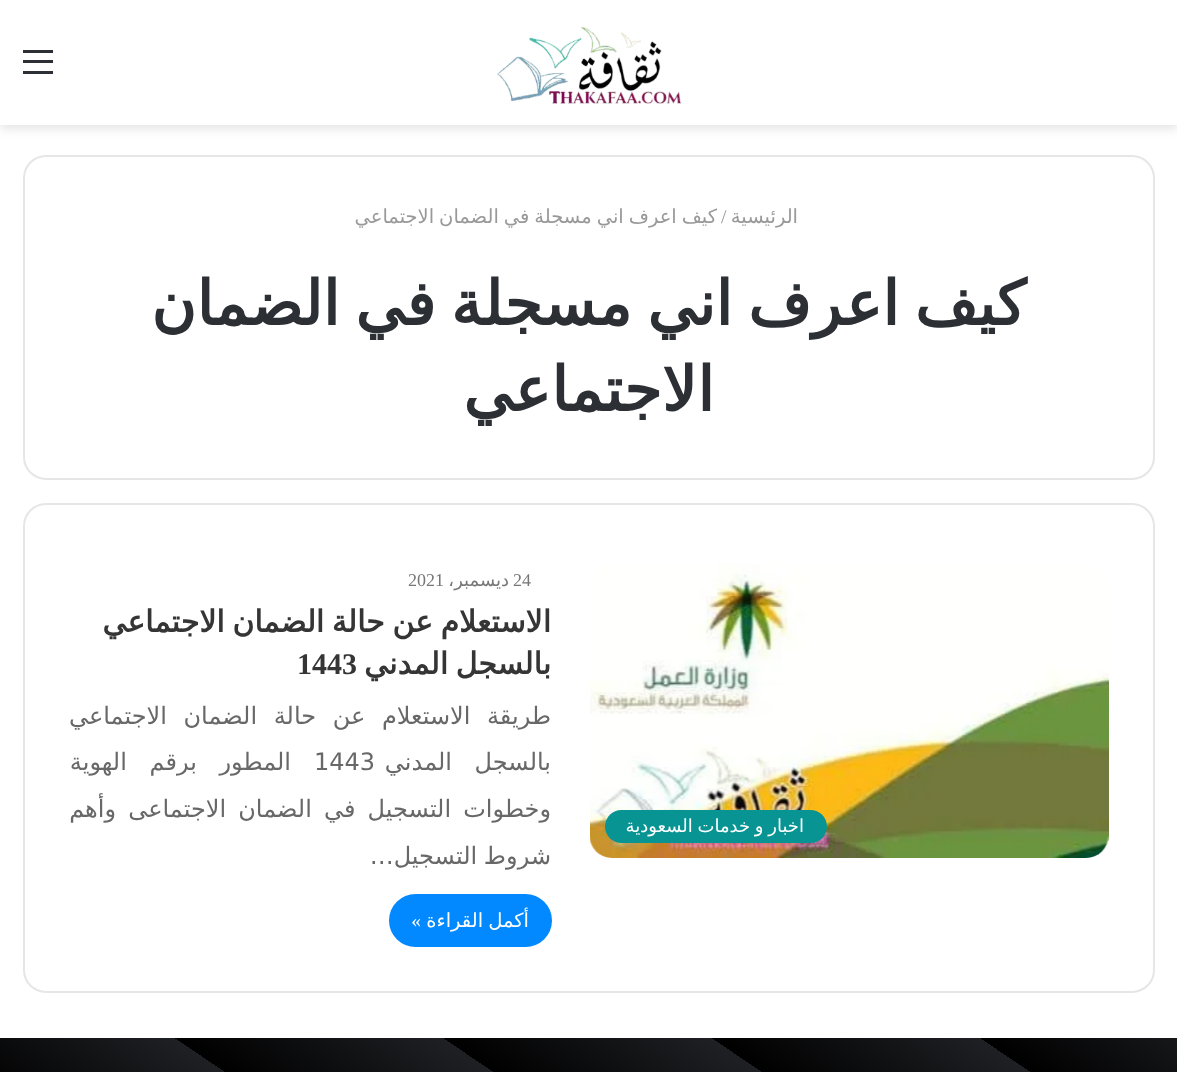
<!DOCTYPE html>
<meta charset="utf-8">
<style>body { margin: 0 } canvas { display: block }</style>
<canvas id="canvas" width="1177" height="1072"></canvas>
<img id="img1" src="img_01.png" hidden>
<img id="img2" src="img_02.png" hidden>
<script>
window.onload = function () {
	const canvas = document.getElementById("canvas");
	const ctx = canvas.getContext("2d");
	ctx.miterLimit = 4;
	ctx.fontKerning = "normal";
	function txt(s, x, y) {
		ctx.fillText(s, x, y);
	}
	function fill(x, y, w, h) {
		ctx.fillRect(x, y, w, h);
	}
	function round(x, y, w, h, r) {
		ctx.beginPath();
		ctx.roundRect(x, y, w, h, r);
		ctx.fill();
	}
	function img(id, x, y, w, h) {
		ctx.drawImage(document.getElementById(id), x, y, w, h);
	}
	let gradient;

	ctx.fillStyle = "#FFFFFF";
	fill(0, 0, 1177, 1072);
	ctx.fillStyle = "rgba(0, 0, 0, 0.1)";
	ctx.filter = "blur(5px)";
	ctx.beginPath();
	ctx.rect(0, 5, 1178, 124);
	ctx.fill();
	ctx.filter = "none";
	ctx.fillStyle = "#FFFFFF";
	fill(0, 0, 1177, 125);
	img("img1", 497, 26, 185, 78);
	ctx.fillStyle = "#2C2F34";
	fill(23, 60, 30, 3);
	fill(23, 50, 30, 3);
	fill(23, 71, 30, 3);
	ctx.beginPath();
	ctx.roundRect(24, 156, 1130, 323, 22);
	ctx.strokeStyle = "#E6E6E6";
	ctx.lineWidth = 2;
	ctx.stroke();
	ctx.beginPath();
	ctx.roundRect(24, 504, 1130, 488, 22);
	ctx.stroke();
	img("img2", 590, 564, 519, 294);
	ctx.fillStyle = "#099494";
	round(605, 810, 222, 33, 16.5);
	ctx.fillStyle = "#0389FF";
	round(389, 894, 163, 53, 26.5);
	gradient = ctx.createLinearGradient(390, 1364, 809, 742);
	gradient.addColorStop(0, "#000000");
	gradient.addColorStop(0.2, "#1F2024");
	gradient.addColorStop(0.2, "#000000");
	gradient.addColorStop(0.4, "#1F2024");
	gradient.addColorStop(0.4, "#000000");
	gradient.addColorStop(0.6, "#1F2024");
	gradient.addColorStop(0.6, "#000000");
	gradient.addColorStop(0.8, "#1F2024");
	gradient.addColorStop(0.8, "#000000");
	gradient.addColorStop(1, "#1F2024");
	ctx.fillStyle = gradient;
	fill(0, 1038, 1177, 34);
	ctx.direction = "rtl";
	ctx.font = "19.5px DejaVu Sans";
	ctx.fillStyle = "#999999";
	txt("الرئيسية", 798, 223);
	ctx.direction = "ltr";
	ctx.font = "19.5px Liberation Serif";
	txt("/", 721, 223);
	ctx.wordSpacing = "-1.25px";
	ctx.direction = "rtl";
	ctx.font = "19.5px DejaVu Sans";
	txt("كيف اعرف اني مسجلة في الضمان الاجتماعي", 717, 223);
	ctx.wordSpacing = "-4.25px";
	ctx.font = "bold 61.5px DejaVu Sans";
	ctx.fillStyle = "#2C2F34";
	txt("كيف اعرف اني مسجلة في الضمان", 1026, 325);
	ctx.wordSpacing = "0px";
	txt("الاجتماعي", 714, 411);
	ctx.wordSpacing = "-1px";
	ctx.font = "18px DejaVu Sans";
	ctx.fillStyle = "#FFFFFF";
	txt("اخبار و خدمات السعودية", 804, 832);
	ctx.wordSpacing = "0px";
	ctx.direction = "ltr";
	ctx.font = "18px Liberation Serif";
	ctx.fillStyle = "#777777";
	txt("24", 513, 586);
	ctx.direction = "rtl";
	ctx.font = "18px DejaVu Sans";
	txt("ديسمبر،", 509, 586);
	ctx.direction = "ltr";
	ctx.font = "18px Liberation Serif";
	txt("2021", 408, 586);
	ctx.wordSpacing = "-2px";
	ctx.direction = "rtl";
	ctx.font = "bold 30px DejaVu Sans";
	ctx.fillStyle = "#353535";
	txt("الاستعلام عن حالة الضمان الاجتماعي", 551, 632);
	txt("بالسجل المدني", 551, 674);
	ctx.wordSpacing = "0px";
	ctx.direction = "ltr";
	ctx.font = "bold 30px Liberation Serif";
	txt("1443", 297, 674);
	ctx.wordSpacing = "9px";
	ctx.direction = "rtl";
	ctx.font = "24px DejaVu Sans";
	ctx.fillStyle = "#686868";
	txt("طريقة الاستعلام عن حالة الضمان الاجتماعي", 551, 724);
	ctx.wordSpacing = "15px";
	txt("بالسجل المدني", 551, 770);
	ctx.wordSpacing = "0px";
	ctx.direction = "ltr";
	txt("1443", 314, 770);
	ctx.wordSpacing = "15px";
	ctx.direction = "rtl";
	txt("المطور برقم الهوية", 291, 770);
	ctx.wordSpacing = "4.5px";
	txt("وخطوات التسجيل في الضمان الاجتماعى وأهم", 551, 817);
	ctx.wordSpacing = "-1px";
	txt("شروط التسجيل…", 551, 864);
	ctx.font = "19.5px DejaVu Sans";
	ctx.fillStyle = "#FFFFFF";
	txt("أكمل القراءة", 529, 927);
	ctx.wordSpacing = "0px";
	ctx.font = "19.5px Liberation Serif";
	txt("»", 421, 927);
};
</script>
